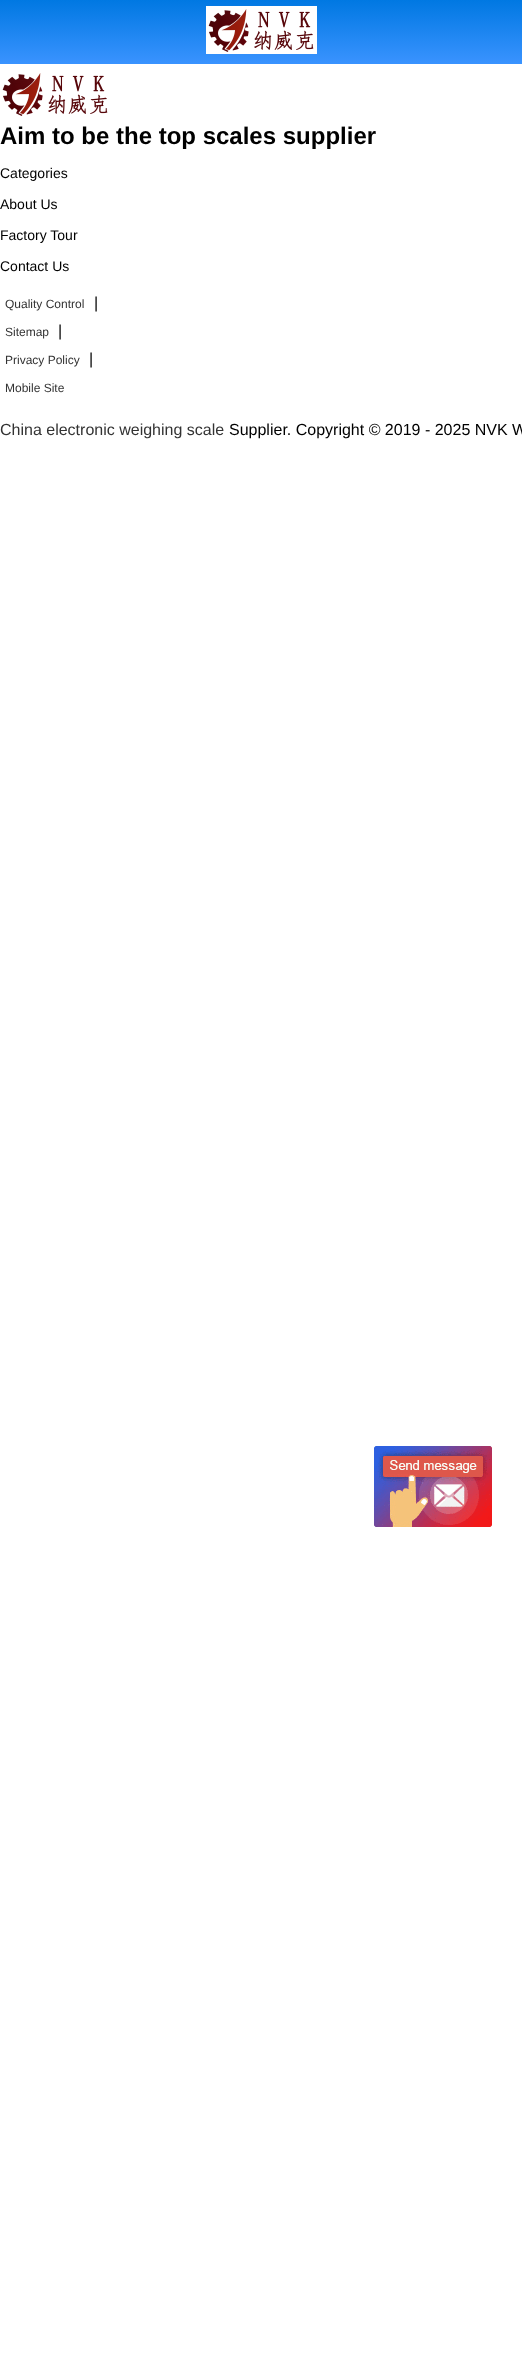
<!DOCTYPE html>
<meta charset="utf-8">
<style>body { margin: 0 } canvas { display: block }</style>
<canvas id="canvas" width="522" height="2377"></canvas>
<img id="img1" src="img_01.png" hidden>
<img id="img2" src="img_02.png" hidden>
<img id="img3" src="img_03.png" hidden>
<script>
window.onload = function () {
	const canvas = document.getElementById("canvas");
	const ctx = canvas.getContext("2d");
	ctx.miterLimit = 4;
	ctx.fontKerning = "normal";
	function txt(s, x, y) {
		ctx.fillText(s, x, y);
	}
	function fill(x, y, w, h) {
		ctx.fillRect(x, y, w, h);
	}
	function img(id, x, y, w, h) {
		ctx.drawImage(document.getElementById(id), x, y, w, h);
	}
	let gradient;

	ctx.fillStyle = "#FFFFFF";
	fill(0, 0, 522, 2377);
	gradient = ctx.createLinearGradient(261, 0, 261, 64);
	gradient.addColorStop(0, "#0078E2");
	gradient.addColorStop(1, "#3A93FF");
	ctx.fillStyle = gradient;
	fill(0, 0, 522, 64);
	img("img1", 206, 6, 111, 48);
	img("img2", 2, 73, 106, 43);
	img("img3", 374, 1446, 118, 81);
	ctx.font = "bold 24px Liberation Sans";
	ctx.fillStyle = "#000000";
	txt("Aim to be the top scales supplier", 0, 144);
	ctx.font = "14px Liberation Sans";
	txt("Categories", 0, 178);
	txt("About Us", 0, 209);
	txt("Factory Tour", 0, 240);
	txt("Contact Us", 0, 271);
	ctx.font = "12px Liberation Sans";
	ctx.fillStyle = "#333333";
	txt("Quality Control", 5, 308);
	ctx.font = "16px Liberation Sans";
	ctx.fillStyle = "#000000";
	txt("|", 94, 308);
	ctx.font = "12px Liberation Sans";
	ctx.fillStyle = "#333333";
	txt("Sitemap", 5, 336);
	ctx.font = "16px Liberation Sans";
	ctx.fillStyle = "#000000";
	txt("|", 58, 336);
	ctx.font = "12px Liberation Sans";
	ctx.fillStyle = "#333333";
	txt("Privacy Policy", 5, 364);
	ctx.font = "16px Liberation Sans";
	ctx.fillStyle = "#000000";
	txt("|", 89, 364);
	ctx.font = "12px Liberation Sans";
	ctx.fillStyle = "#333333";
	txt("Mobile Site", 5, 392);
	ctx.font = "16px Liberation Sans";
	txt("China electronic weighing scale", 0, 435);
	ctx.fillStyle = "#000000";
	txt("Supplier. Copyright © 2019 - 2025 NVK W", 229, 435);
};
</script>
